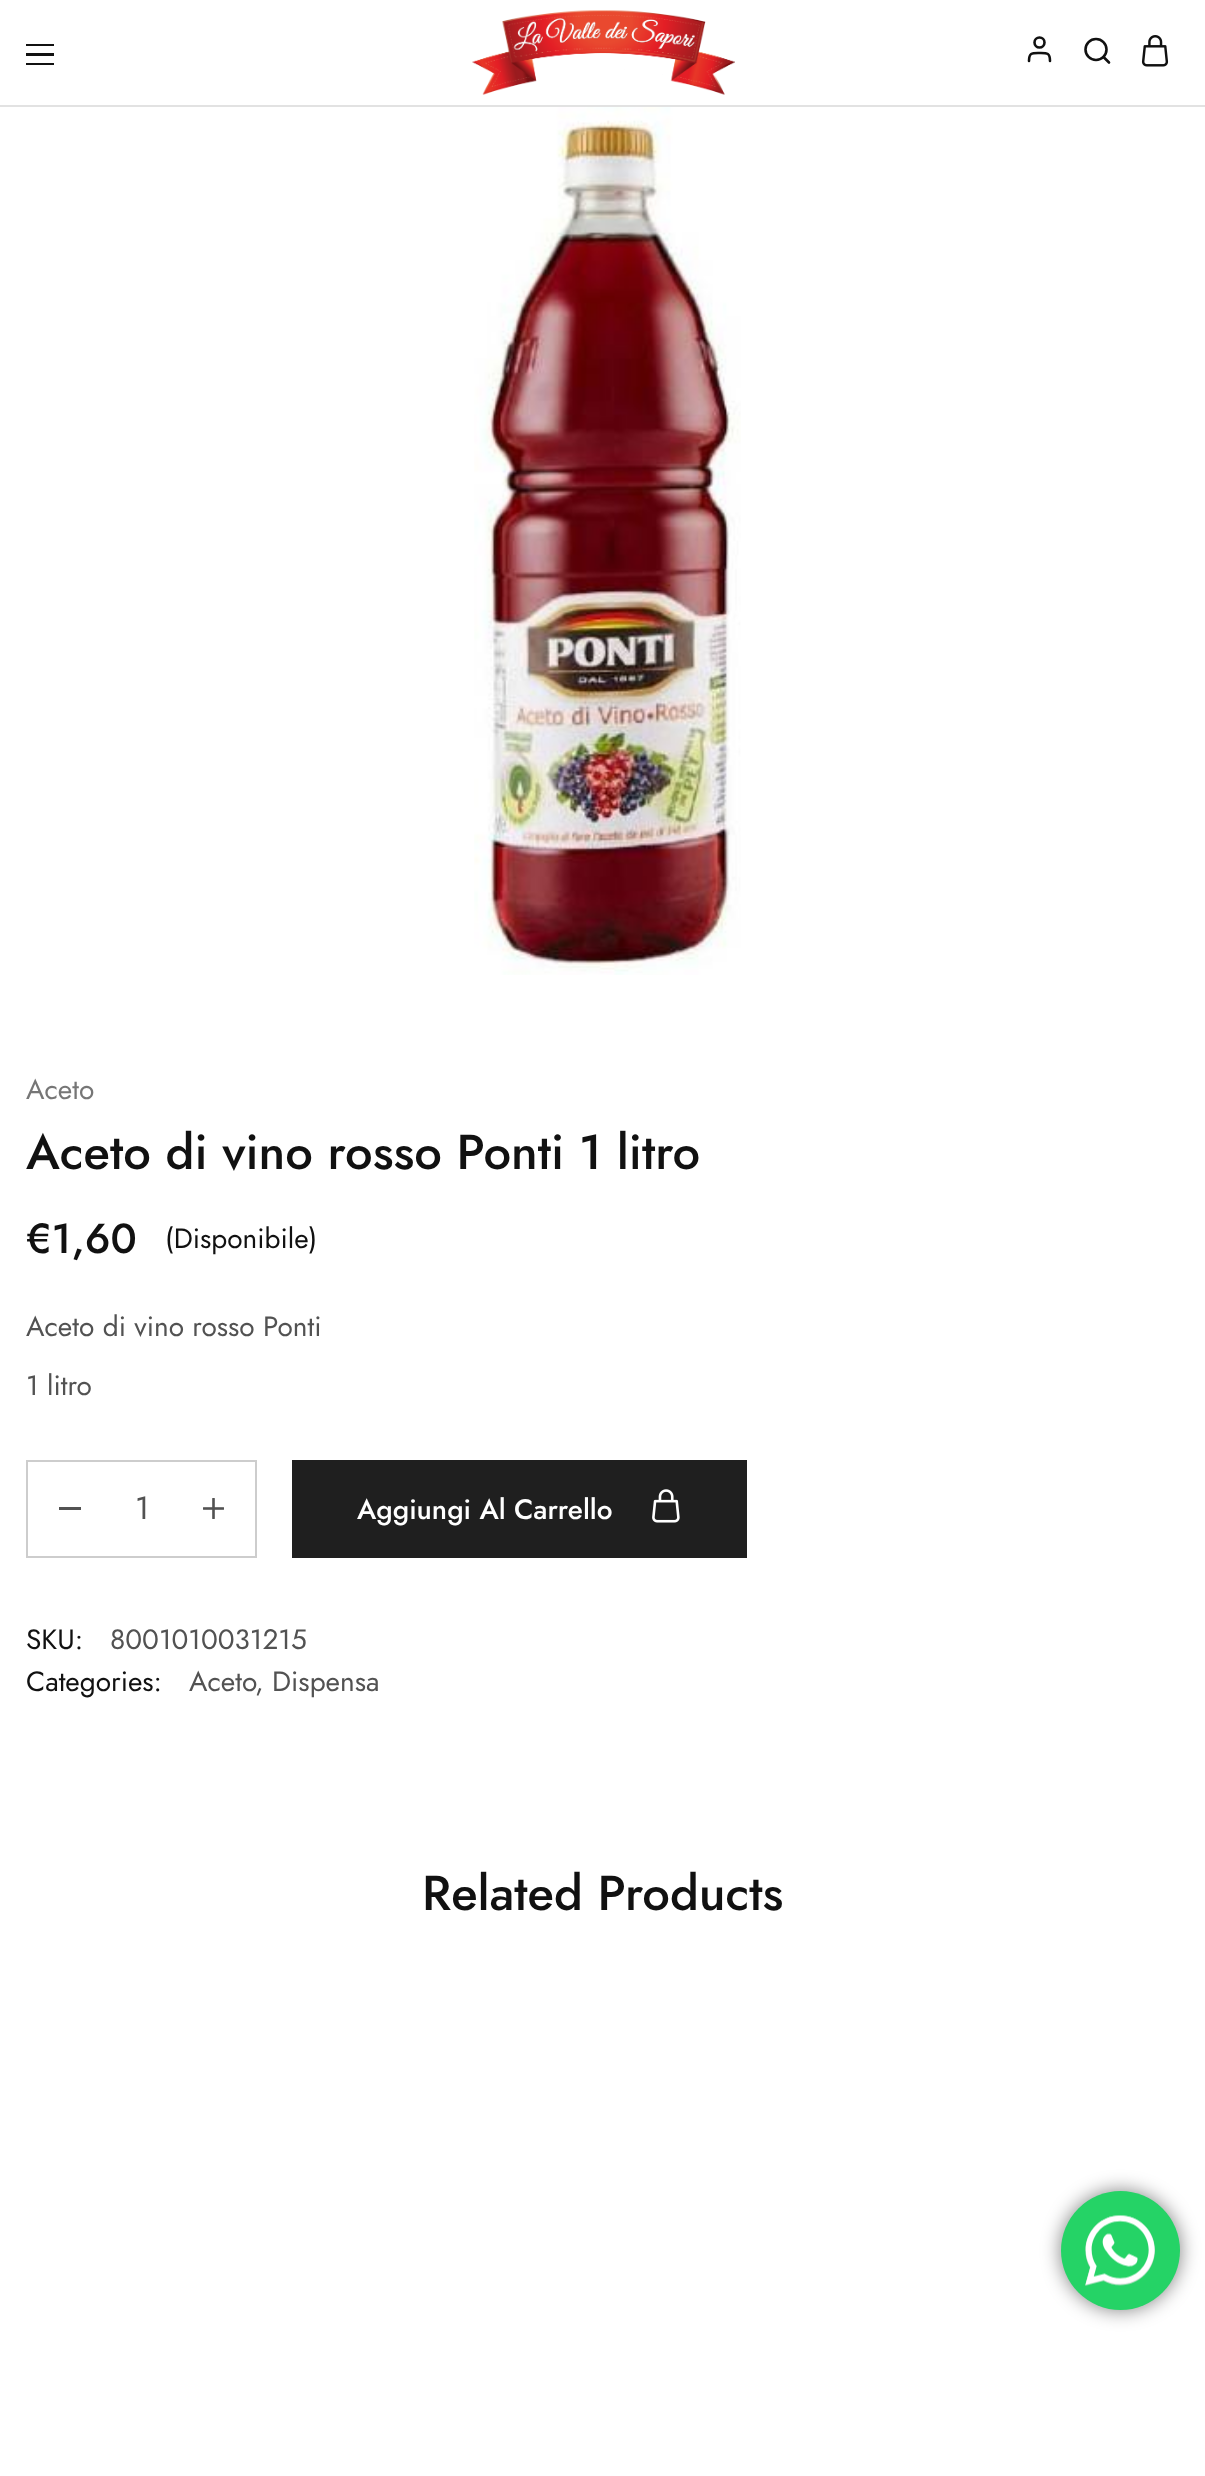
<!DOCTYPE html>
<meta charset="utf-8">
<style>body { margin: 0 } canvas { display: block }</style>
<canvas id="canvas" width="1205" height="2476"></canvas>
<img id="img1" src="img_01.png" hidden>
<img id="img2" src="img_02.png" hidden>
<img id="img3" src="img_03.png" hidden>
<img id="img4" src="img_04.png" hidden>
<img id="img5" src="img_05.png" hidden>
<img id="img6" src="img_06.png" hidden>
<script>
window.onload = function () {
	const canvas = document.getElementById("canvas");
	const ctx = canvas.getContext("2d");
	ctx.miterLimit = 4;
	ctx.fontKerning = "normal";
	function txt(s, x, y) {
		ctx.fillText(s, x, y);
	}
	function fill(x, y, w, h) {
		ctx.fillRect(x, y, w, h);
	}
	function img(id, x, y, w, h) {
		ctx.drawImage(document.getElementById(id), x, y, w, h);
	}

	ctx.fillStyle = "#FFFFFF";
	fill(0, 0, 1205, 2476);
	ctx.fillStyle = "#E2E2E2";
	fill(0, 105, 1205, 2);
	ctx.fillStyle = "#111111";
	fill(26, 44, 28, 2);
	fill(26, 53, 28, 3);
	fill(26, 63, 28, 2);
	img("img1", 472, 10, 263, 85);
	ctx.beginPath();
	ctx.moveTo(1050, 61);
	ctx.bezierCurveTo(1050, 52.5, 1047, 53, 1039.5, 53);
	ctx.bezierCurveTo(1032, 53, 1029, 52.5, 1029, 61);
	ctx.strokeStyle = "#111111";
	ctx.lineWidth = 2.6;
	ctx.lineCap = "round";
	ctx.lineJoin = "round";
	ctx.stroke();
	ctx.beginPath();
	ctx.arc(1039.5, 42.5, 5, 0, Math.PI * 2);
	ctx.stroke();
	ctx.beginPath();
	ctx.arc(1096, 49.5, 10.5, 0, Math.PI * 2);
	ctx.stroke();
	ctx.beginPath();
	ctx.moveTo(1109, 62.5);
	ctx.lineTo(1103.5, 57);
	ctx.stroke();
	img("img2", 1141, 35, 28, 32);
	img("img3", 474, 107, 267, 868);
	ctx.strokeStyle = "#CDCDCD";
	ctx.lineWidth = 2;
	ctx.lineJoin = "miter";
	ctx.strokeRect(27, 1461, 229, 96);
	ctx.fillStyle = "#525252";
	fill(59, 1507, 22, 3);
	img("img4", 203, 1498, 21, 21);
	ctx.fillStyle = "#1F1F1F";
	fill(292, 1460, 455, 98);
	img("img5", 652, 1489, 28, 34);
	ctx.fillStyle = "rgba(0, 0, 0, 0.5)";
	ctx.filter = "blur(9.5px)";
	ctx.beginPath();
	ctx.roundRect(1061, 2191, 119, 119, 59.5);
	ctx.fill();
	ctx.filter = "none";
	ctx.fillStyle = "#25D366";
	ctx.beginPath();
	ctx.arc(1120.5, 2250.5, 59.5, 0, Math.PI * 2);
	ctx.fill();
	img("img6", 1085, 2215, 70, 71);
	ctx.font = "28px Jost";
	ctx.fillStyle = "#767676";
	txt("Aceto", 26, 1099);
	ctx.font = "500 49px Jost";
	ctx.fillStyle = "#111111";
	txt("Aceto di vino rosso Ponti 1 litro", 26, 1169);
	ctx.font = "500 42px Jost";
	txt("€1,60", 26, 1253);
	ctx.font = "28px Jost";
	txt("(Disponibile)", 165, 1248);
	ctx.fillStyle = "#525252";
	txt("Aceto di vino rosso Ponti", 26, 1336);
	txt("1 litro", 26, 1395);
	ctx.font = "32px Jost";
	txt("1", 135, 1519);
	ctx.font = "500 28px Jost";
	ctx.fillStyle = "#FFFFFF";
	txt("Aggiungi Al Carrello", 357, 1519);
	ctx.font = "28px Jost";
	ctx.fillStyle = "#111111";
	txt("SKU:", 26, 1649);
	ctx.fillStyle = "#525252";
	txt("8001010031215", 110, 1649);
	ctx.fillStyle = "#111111";
	txt("Categories:", 26, 1691);
	ctx.fillStyle = "#525252";
	txt("Aceto", 189, 1691);
	txt(", Dispensa", 255, 1691);
	ctx.font = "500 49px Jost";
	ctx.fillStyle = "#111111";
	txt("Related Products", 422, 1910);
};
</script>
